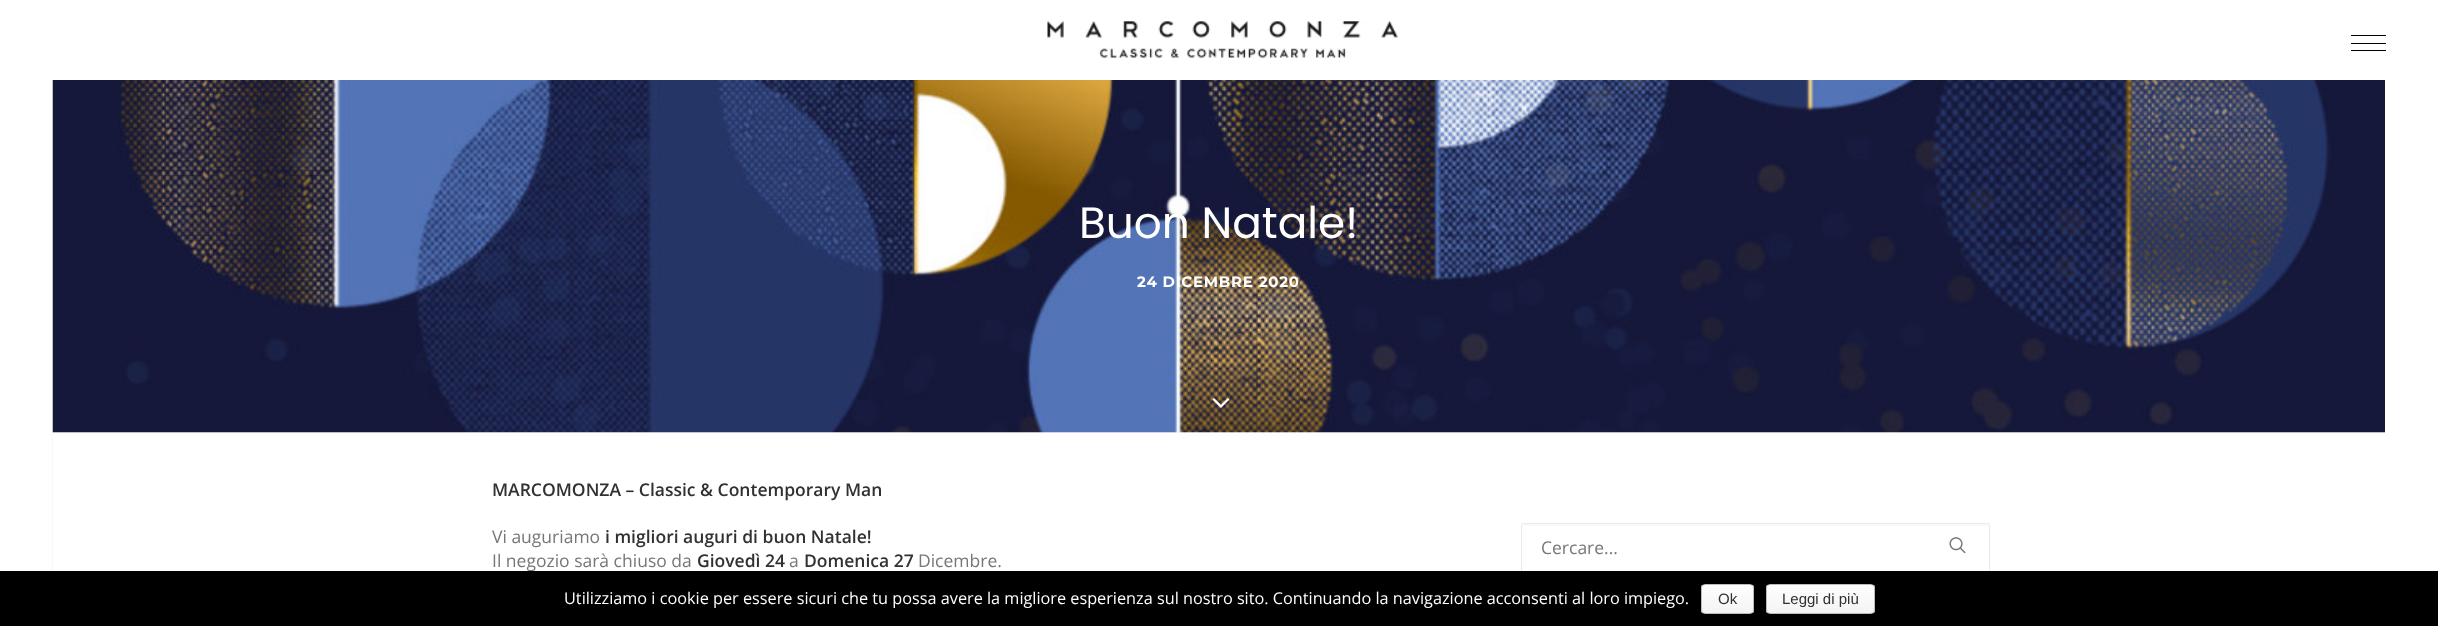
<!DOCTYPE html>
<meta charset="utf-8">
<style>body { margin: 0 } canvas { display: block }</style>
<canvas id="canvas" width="2438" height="626"></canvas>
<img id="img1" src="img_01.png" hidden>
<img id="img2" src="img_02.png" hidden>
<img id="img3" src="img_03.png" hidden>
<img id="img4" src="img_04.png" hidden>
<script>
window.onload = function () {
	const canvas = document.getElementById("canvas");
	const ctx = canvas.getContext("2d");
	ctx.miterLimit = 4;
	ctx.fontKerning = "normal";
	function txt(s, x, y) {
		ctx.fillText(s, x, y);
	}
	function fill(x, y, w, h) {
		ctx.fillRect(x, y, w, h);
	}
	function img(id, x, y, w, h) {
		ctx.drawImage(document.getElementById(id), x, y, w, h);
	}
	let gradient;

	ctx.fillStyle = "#F7F7F7";
	fill(0, 0, 2438, 626);
	ctx.strokeStyle = "#FFFFFF";
	ctx.lineWidth = 56;
	ctx.strokeRect(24, 28, 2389, 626);
	ctx.fillStyle = "#FFFFFF";
	fill(52, 56, 2333, 24);
	img("img1", 1047, 21, 351, 37);
	ctx.fillStyle = "#000000";
	fill(2351, 43, 35, 1);
	fill(2351, 35, 35, 1);
	fill(2351, 50, 35, 1);
	img("img2", 52, 80, 2333, 353);
	img("img3", 1212, 398, 18, 10);
	ctx.fillStyle = "#FFFFFF";
	fill(53, 433, 2332, 138);
	ctx.fillStyle = "#F9F9F9";
	ctx.beginPath();
	ctx.moveTo(1524, 526);
	ctx.lineTo(1988, 526);
	ctx.lineTo(1989, 528);
	ctx.lineTo(1989, 525);
	ctx.bezierCurveTo(1989, 524, 1989, 524, 1988, 524);
	ctx.lineTo(1524, 524);
	ctx.bezierCurveTo(1523, 524, 1523, 524, 1523, 525);
	ctx.lineTo(1523, 526);
	ctx.closePath();
	ctx.fill();
	ctx.beginPath();
	ctx.roundRect(1521.5, 523.5, 468, 50, 2);
	ctx.strokeStyle = "#EAEAEA";
	ctx.lineWidth = 1;
	ctx.stroke();
	img("img4", 1949, 537, 17, 17);
	ctx.font = "43.75px Poppins";
	ctx.fillStyle = "#FFFFFF";
	txt("Buon Natale!", 1079, 238);
	ctx.letterSpacing = "0.75px";
	ctx.font = "bold 15px Montserrat";
	txt("24 DICEMBRE 2020", 1137, 287);
	ctx.letterSpacing = "0px";
	ctx.font = "600 17.5px Open Sans";
	ctx.fillStyle = "#303133";
	txt("MARCOMONZA – Classic & Contemporary Man", 492, 496);
	ctx.font = "17.5px Open Sans";
	ctx.fillStyle = "#777777";
	txt("Vi auguriamo", 492, 543);
	ctx.font = "600 17.5px Open Sans";
	ctx.fillStyle = "#303133";
	txt("i migliori auguri di buon Natale!", 605, 543);
	ctx.font = "17.5px Open Sans";
	ctx.fillStyle = "#777777";
	txt("Il negozio sarà chiuso da", 492, 567);
	ctx.font = "600 17.5px Open Sans";
	ctx.fillStyle = "#303133";
	txt("Giovedì 24", 697, 567);
	ctx.font = "17.5px Open Sans";
	ctx.fillStyle = "#777777";
	txt("a", 789, 567);
	ctx.font = "600 17.5px Open Sans";
	ctx.fillStyle = "#303133";
	txt("Domenica 27", 804, 567);
	ctx.font = "17.5px Open Sans";
	ctx.fillStyle = "#777777";
	txt("Dicembre.", 918, 567);
	txt("Cercare...", 1541, 554);
	ctx.fillStyle = "#000000";
	fill(0, 571, 2438, 55);
	ctx.font = "16.25px Open Sans";
	ctx.fillStyle = "#FFFFFF";
	txt("Utilizziamo i cookie per essere sicuri che tu possa avere la migliore esperienza sul nostro sito. Continuando la navigazione acconsenti al loro impiego.", 564, 604);
	ctx.save();
	ctx.beginPath();
	ctx.roundRect(1701, 584, 53, 30, 4);
	ctx.clip();
	gradient = ctx.createLinearGradient(1728, 585, 1728, 613);
	gradient.addColorStop(0, "#FEFEFE");
	gradient.addColorStop(1, "#F4F4F4");
	ctx.fillStyle = gradient;
	fill(1701, 585, 53, 28);
	ctx.restore();
	ctx.beginPath();
	ctx.roundRect(1701.5, 584.5, 52, 29, 3.5);
	ctx.strokeStyle = "#BBBBBB";
	ctx.stroke();
	ctx.font = "15px Liberation Sans";
	ctx.fillStyle = "#303133";
	txt("Ok", 1718, 604);
	ctx.save();
	ctx.beginPath();
	ctx.roundRect(1766, 584, 109, 30, 4);
	ctx.clip();
	gradient = ctx.createLinearGradient(1821, 585, 1821, 613);
	gradient.addColorStop(0, "#FEFEFE");
	gradient.addColorStop(1, "#F4F4F4");
	ctx.fillStyle = gradient;
	fill(1766, 585, 109, 28);
	ctx.restore();
	ctx.beginPath();
	ctx.roundRect(1766.5, 584.5, 108, 29, 3.5);
	ctx.stroke();
	txt("Leggi di più", 1782, 604);
};
</script>
